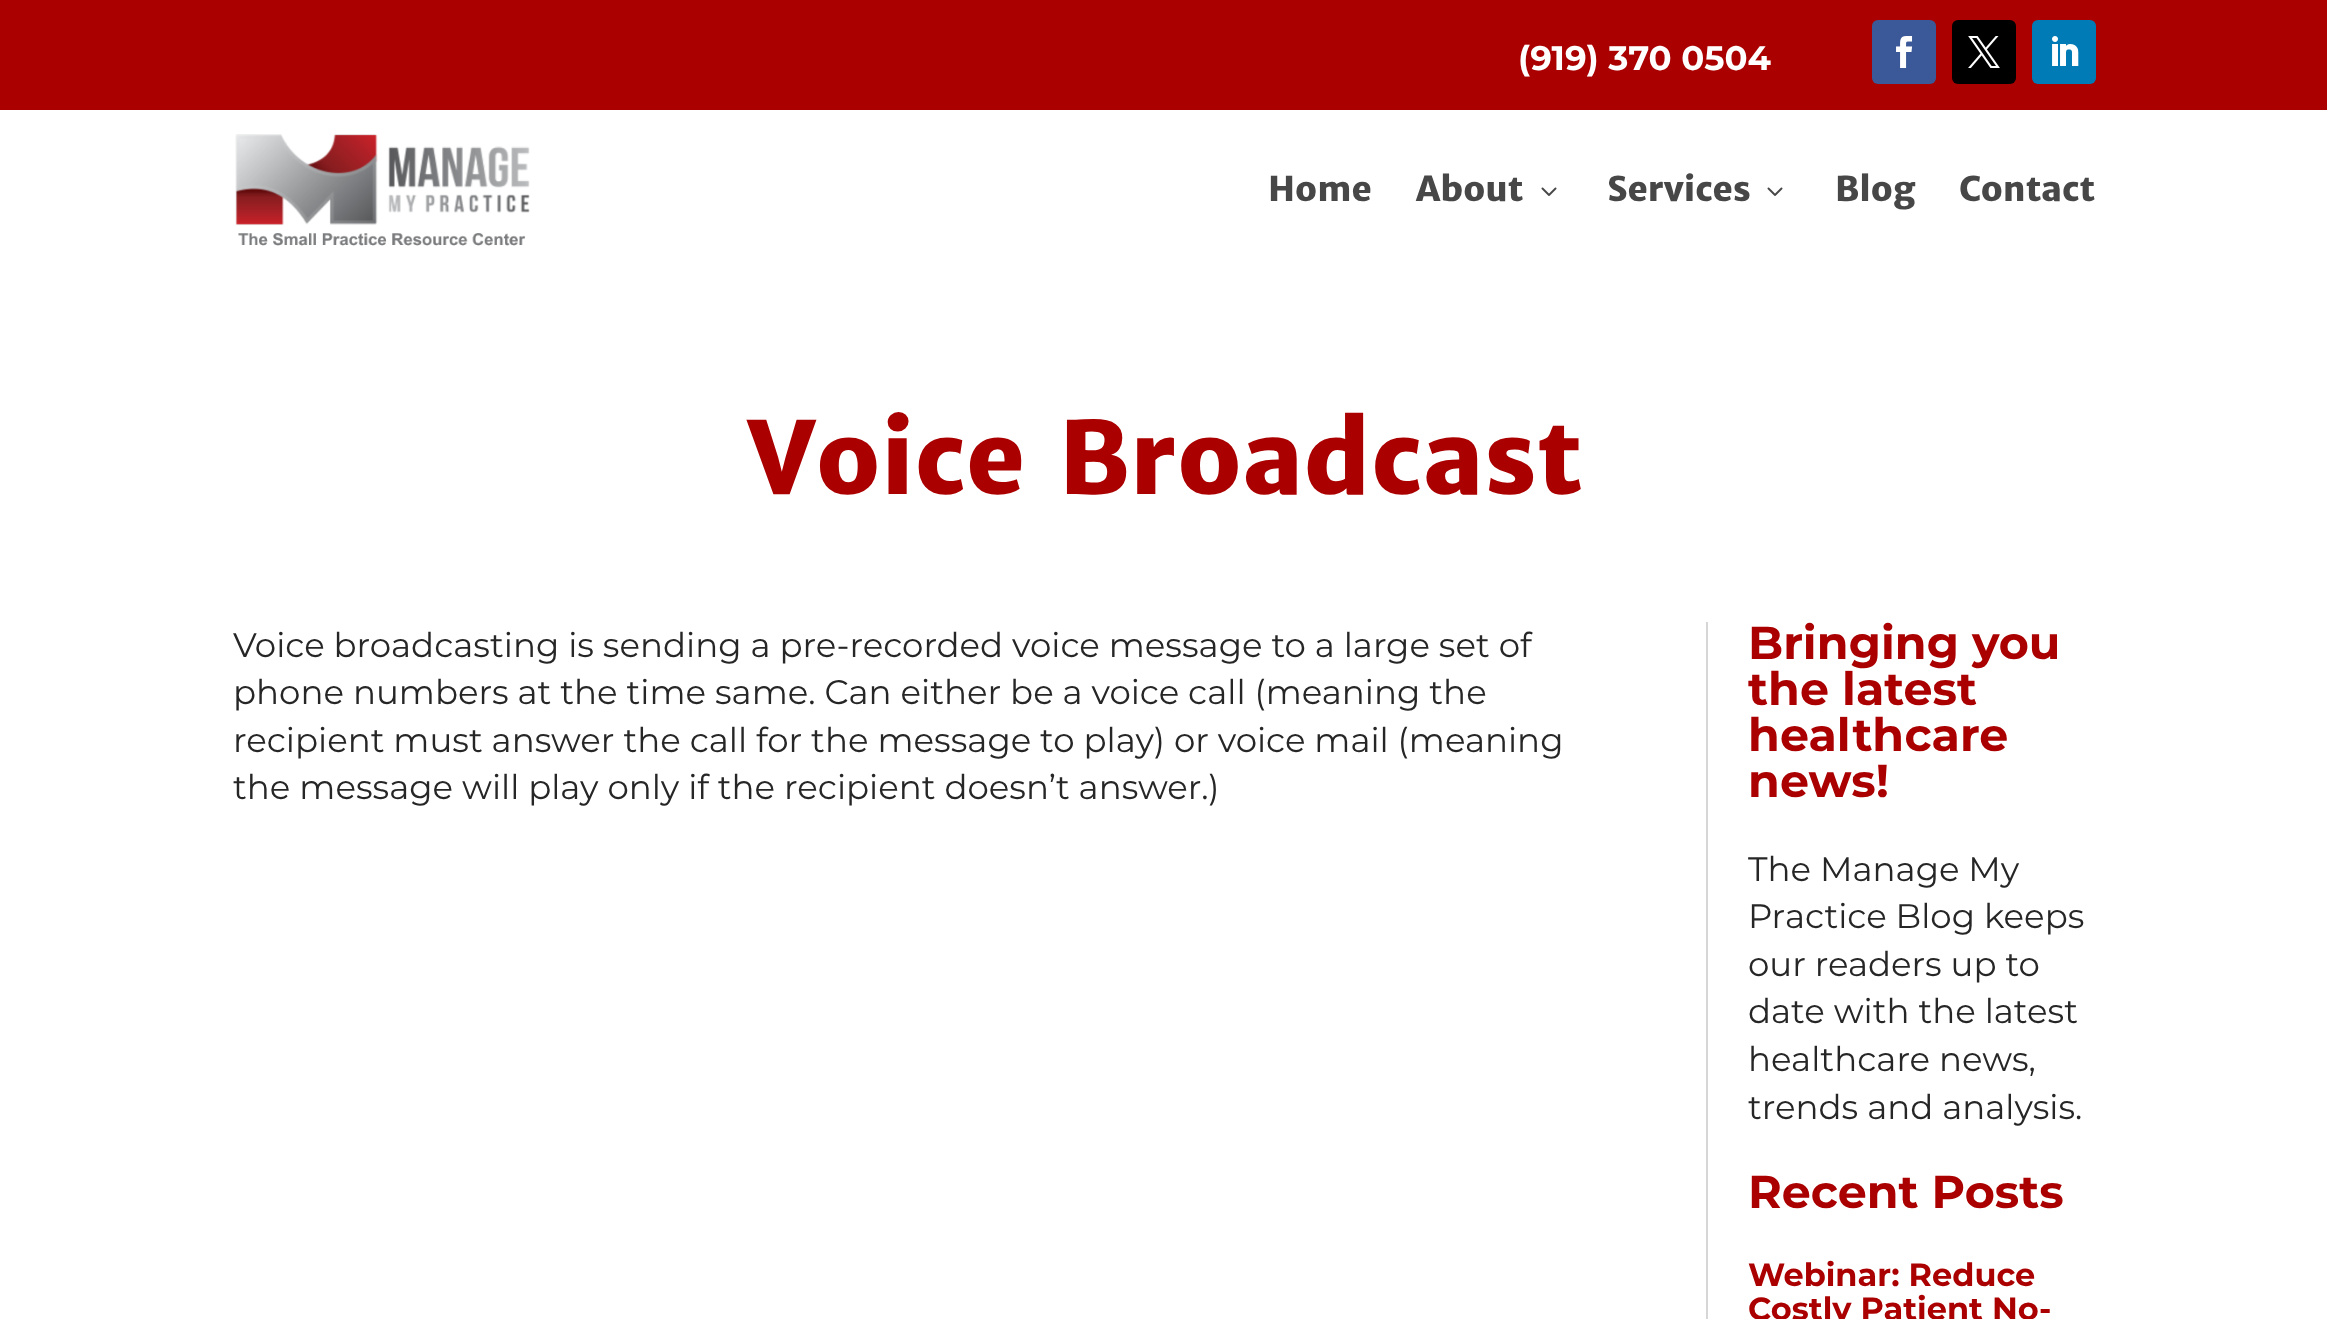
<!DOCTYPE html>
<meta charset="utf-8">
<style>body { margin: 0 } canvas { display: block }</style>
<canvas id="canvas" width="2327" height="1319"></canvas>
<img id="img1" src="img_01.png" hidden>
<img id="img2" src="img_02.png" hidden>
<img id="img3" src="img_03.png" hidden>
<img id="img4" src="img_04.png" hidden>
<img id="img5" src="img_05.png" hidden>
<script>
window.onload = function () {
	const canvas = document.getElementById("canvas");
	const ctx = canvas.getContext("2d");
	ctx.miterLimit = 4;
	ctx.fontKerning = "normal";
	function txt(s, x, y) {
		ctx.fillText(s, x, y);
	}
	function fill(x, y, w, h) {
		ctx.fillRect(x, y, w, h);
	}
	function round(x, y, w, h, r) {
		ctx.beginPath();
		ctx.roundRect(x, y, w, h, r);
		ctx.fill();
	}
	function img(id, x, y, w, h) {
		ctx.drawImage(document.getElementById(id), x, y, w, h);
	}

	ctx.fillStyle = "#FFFFFF";
	fill(0, 0, 2327, 1319);
	ctx.fillStyle = "#AB0000";
	fill(0, 0, 2327, 110);
	ctx.fillStyle = "#3B5998";
	round(1872, 20, 64, 64, 6);
	img("img1", 1896, 36, 17, 32);
	ctx.fillStyle = "#000000";
	round(1952, 20, 64, 64, 6);
	img("img2", 1968, 36, 32, 32);
	ctx.fillStyle = "#007BB6";
	round(2032, 20, 64, 64, 6);
	img("img3", 2052, 36, 27, 30);
	img("img4", 235, 134, 295, 112);
	img("img5", 1541, 187, 16, 9);
	img("img5", 1767, 187, 16, 9);
	ctx.fillStyle = "#D6D6D6";
	fill(1706, 622, 2, 697);
	ctx.font = "bold 34px Montserrat";
	ctx.fillStyle = "#FFFFFF";
	txt("(919) 370 0504", 1518, 70);
	ctx.font = "800 34px Merriweather Sans";
	ctx.fillStyle = "#474747";
	txt("Home", 1268, 201);
	txt("About", 1416, 201);
	txt("Services", 1607, 201);
	txt("Blog", 1835, 201);
	txt("Contact", 1959, 201);
	ctx.font = "800 100px Merriweather Sans";
	ctx.fillStyle = "#AB0000";
	txt("Voice Broadcast", 747, 494);
	ctx.font = "34px Montserrat";
	ctx.fillStyle = "#262626";
	txt("Voice broadcasting is sending a pre-recorded voice message to a large set of", 233, 657);
	txt("phone numbers at the time same. Can either be a voice call (meaning the", 233, 704);
	txt("recipient must answer the call for the message to play) or voice mail (meaning", 233, 752);
	txt("the message will play only if the recipient doesn’t answer.)", 233, 799);
	ctx.font = "bold 46px Montserrat";
	ctx.fillStyle = "#AB0000";
	txt("Bringing you", 1748, 659);
	txt("the latest", 1748, 705);
	txt("healthcare", 1748, 751);
	txt("news!", 1748, 797);
	ctx.font = "34px Montserrat";
	ctx.fillStyle = "#262626";
	txt("The Manage My", 1748, 881);
	txt("Practice Blog keeps", 1748, 928);
	txt("our readers up to", 1748, 976);
	txt("date with the latest", 1748, 1023);
	txt("healthcare news,", 1748, 1071);
	txt("trends and analysis.", 1748, 1119);
	ctx.font = "bold 46px Montserrat";
	ctx.fillStyle = "#AB0000";
	txt("Recent Posts", 1748, 1208);
	ctx.font = "bold 32px Montserrat";
	txt("Webinar: Reduce", 1748, 1286);
	txt("Costly Patient No-", 1748, 1320);
};
</script>
